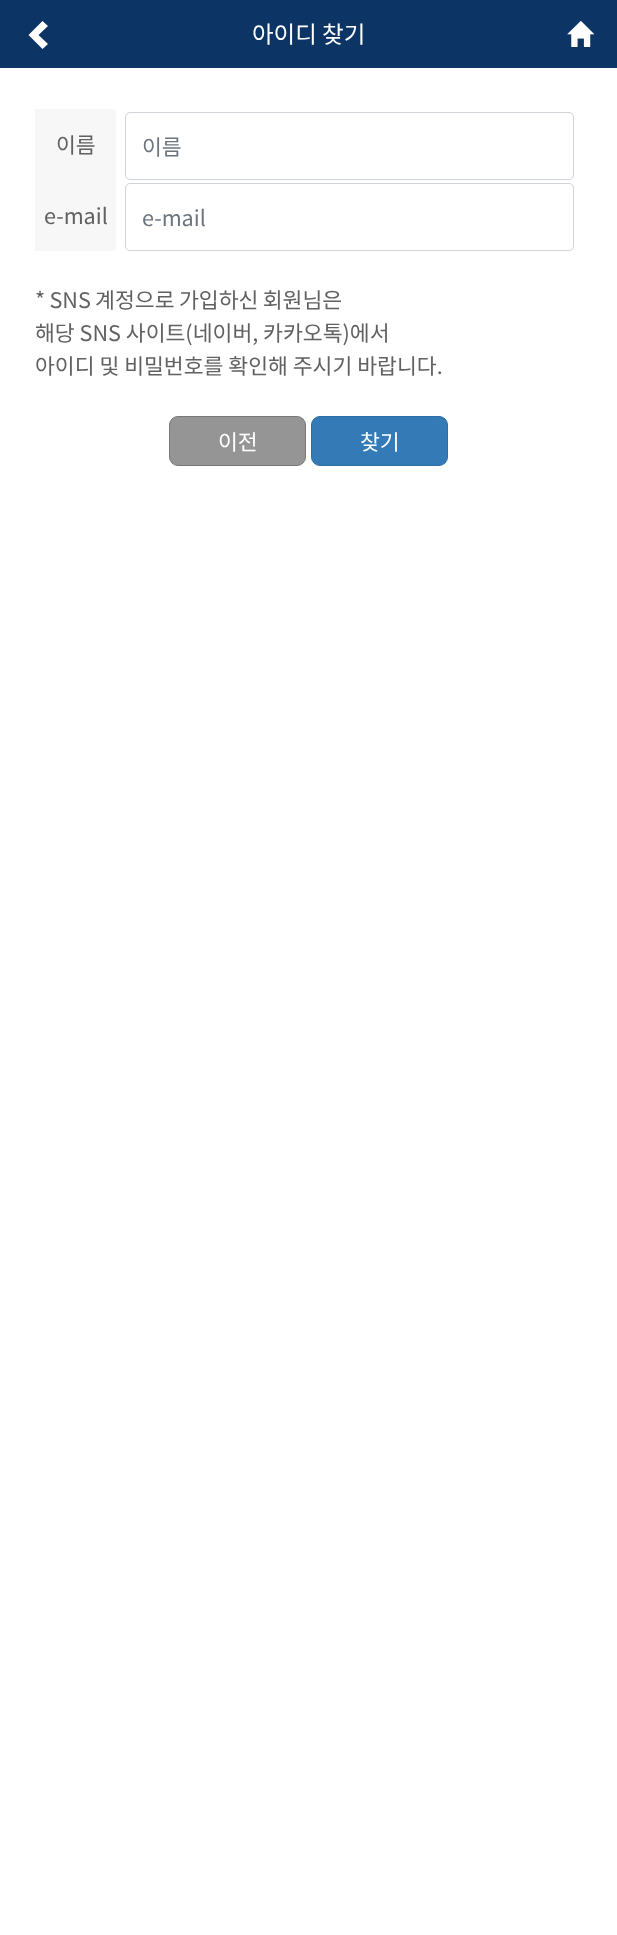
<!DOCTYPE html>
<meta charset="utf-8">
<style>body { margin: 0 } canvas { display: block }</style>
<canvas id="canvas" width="617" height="1935"></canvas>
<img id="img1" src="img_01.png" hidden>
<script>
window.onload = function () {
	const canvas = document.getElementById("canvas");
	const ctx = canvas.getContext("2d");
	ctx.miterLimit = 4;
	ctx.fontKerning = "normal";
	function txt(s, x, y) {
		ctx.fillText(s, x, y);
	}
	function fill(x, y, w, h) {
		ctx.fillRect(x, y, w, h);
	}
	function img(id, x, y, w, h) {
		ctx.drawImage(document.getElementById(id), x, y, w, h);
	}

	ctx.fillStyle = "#FFFFFF";
	fill(0, 0, 617, 1935);
	ctx.fillStyle = "#0C3566";
	fill(0, 0, 617, 68);
	ctx.fillStyle = "#FFFFFF";
	ctx.beginPath();
	ctx.moveTo(48, 26);
	ctx.lineTo(38.5, 35);
	ctx.lineTo(48, 44);
	ctx.lineTo(42.5, 49);
	ctx.lineTo(28.5, 35);
	ctx.lineTo(42.5, 21);
	ctx.closePath();
	ctx.fill();
	img("img1", 567, 21, 28, 26);
	ctx.fillStyle = "#F7F7F7";
	fill(35, 109, 81, 142);
	ctx.beginPath();
	ctx.roundRect(125.5, 112.5, 448, 67, 4.5);
	ctx.strokeStyle = "#CED4DA";
	ctx.stroke();
	ctx.beginPath();
	ctx.roundRect(125.5, 183.5, 448, 67, 4.5);
	ctx.stroke();
	ctx.fillStyle = "#959595";
	ctx.beginPath();
	ctx.roundRect(169.5, 416.5, 136, 49, 8.5);
	ctx.fill();
	ctx.strokeStyle = "#797878";
	ctx.stroke();
	ctx.fillStyle = "#337AB7";
	ctx.beginPath();
	ctx.roundRect(311.5, 416.5, 136, 49, 8.5);
	ctx.fill();
	ctx.strokeStyle = "#2E6DA4";
	ctx.stroke();
	ctx.font = "100 23.5px Noto Sans KR";
	ctx.fillStyle = "#FFFFFF";
	txt("아이디 찾기", 252, 43);
	ctx.font = "100 21.6px Noto Sans KR";
	ctx.fillStyle = "#616161";
	txt("이름", 56, 153);
	ctx.fillStyle = "#6C757D";
	txt("이름", 142, 155);
	ctx.fillStyle = "#616161";
	txt("e-mail", 44, 224);
	ctx.fillStyle = "#6C757D";
	txt("e-mail", 142, 226);
	ctx.wordSpacing = "-0.5px";
	ctx.fillStyle = "#616161";
	txt("* SNS 계정으로 가입하신 회원님은", 35, 308);
	ctx.wordSpacing = "0px";
	txt("해당 SNS 사이트(네이버, 카카오톡)에서", 35, 341);
	txt("아이디 및 비밀번호를 확인해 주시기 바랍니다.", 35, 374);
	ctx.fillStyle = "#FFFFFF";
	txt("이전", 218, 450);
	txt("찾기", 360, 450);
};
</script>
